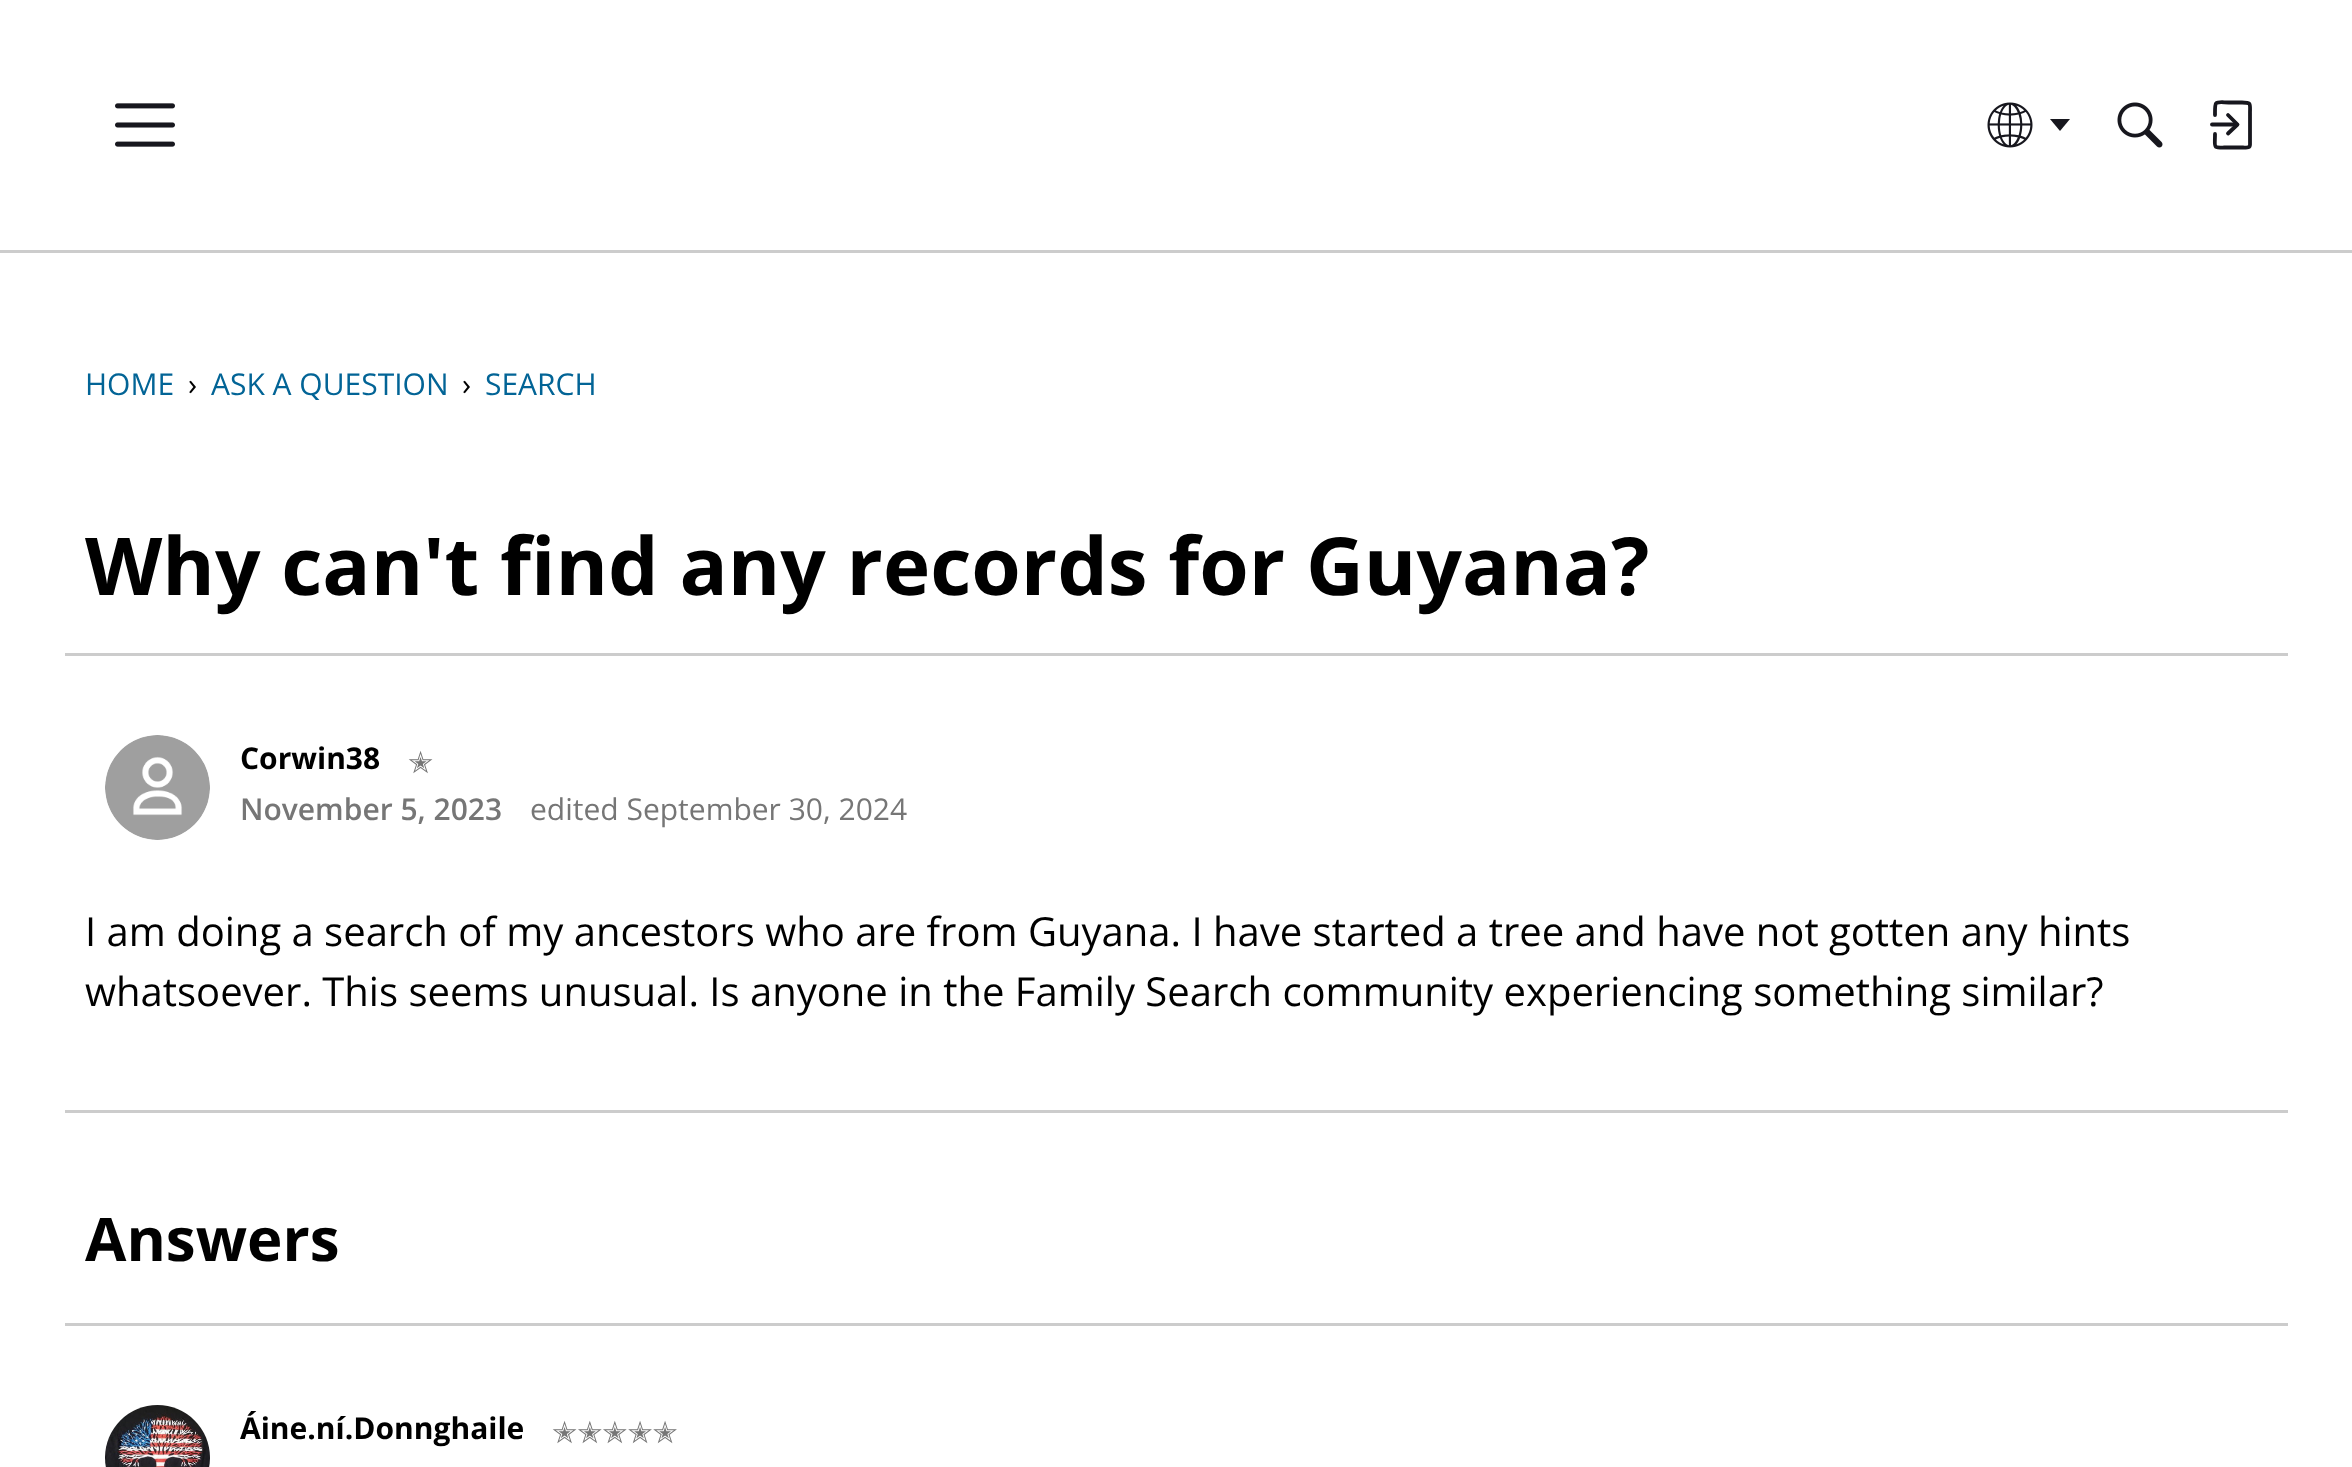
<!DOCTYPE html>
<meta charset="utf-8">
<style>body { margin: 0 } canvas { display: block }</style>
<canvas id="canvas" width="2352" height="1467"></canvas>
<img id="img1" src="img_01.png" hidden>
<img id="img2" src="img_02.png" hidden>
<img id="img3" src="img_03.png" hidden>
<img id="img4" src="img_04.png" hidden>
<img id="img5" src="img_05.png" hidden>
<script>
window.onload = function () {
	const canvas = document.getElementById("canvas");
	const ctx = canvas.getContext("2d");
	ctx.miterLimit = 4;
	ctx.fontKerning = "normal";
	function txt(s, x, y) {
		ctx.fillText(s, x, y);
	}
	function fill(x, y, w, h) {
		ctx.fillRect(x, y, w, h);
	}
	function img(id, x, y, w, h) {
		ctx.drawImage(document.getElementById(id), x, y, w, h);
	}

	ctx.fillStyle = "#FFFFFF";
	fill(0, 0, 2352, 1467);
	ctx.fillStyle = "#CCCCCC";
	fill(0, 250, 2352, 3);
	img("img1", 115, 103, 60, 44);
	img("img2", 1987, 102, 46, 46);
	ctx.fillStyle = "#17171E";
	ctx.beginPath();
	ctx.moveTo(2050, 119);
	ctx.lineTo(2070, 119);
	ctx.lineTo(2060, 131);
	ctx.closePath();
	ctx.fill();
	img("img3", 2117, 102, 46, 46);
	ctx.beginPath();
	ctx.moveTo(2228, 133.5);
	ctx.lineTo(2237.5, 124.5);
	ctx.lineTo(2228, 115);
	ctx.strokeStyle = "#17171E";
	ctx.lineWidth = 3.8;
	ctx.lineCap = "round";
	ctx.lineJoin = "round";
	ctx.stroke();
	ctx.beginPath();
	ctx.moveTo(2236.5, 124.5);
	ctx.lineTo(2212, 124.5);
	ctx.lineJoin = "miter";
	ctx.stroke();
	ctx.beginPath();
	ctx.moveTo(2215, 115);
	ctx.bezierCurveTo(2215, 99, 2214, 102.5, 2232.5, 102.5);
	ctx.lineTo(2242, 102.5);
	ctx.bezierCurveTo(2251.5, 102.5, 2250, 103.5, 2250, 113);
	ctx.lineTo(2250, 144.5);
	ctx.bezierCurveTo(2250, 148.5, 2246, 147.5, 2243, 147.5);
	ctx.lineTo(2228, 147.5);
	ctx.bezierCurveTo(2212, 147.5, 2215, 149, 2215, 134);
	ctx.lineJoin = "round";
	ctx.stroke();
	ctx.fillStyle = "#CCCCCC";
	fill(65, 653, 2223, 3);
	img("img4", 105, 735, 105, 105);
	fill(65, 1110, 2223, 3);
	fill(65, 1323, 2223, 3);
	img("img5", 105, 1405, 105, 62);
	ctx.font = "30px Open Sans";
	ctx.fillStyle = "#026496";
	txt("HOME", 85, 395);
	ctx.fillStyle = "#000000";
	txt("›", 188, 395);
	ctx.fillStyle = "#026496";
	txt("ASK A QUESTION", 211, 395);
	ctx.fillStyle = "#000000";
	txt("›", 462, 395);
	ctx.fillStyle = "#026496";
	txt("SEARCH", 485, 395);
	ctx.font = "bold 80px Open Sans";
	ctx.fillStyle = "#000000";
	txt("Why can't find any records for Guyana?", 85, 595);
	ctx.font = "bold 30px Open Sans";
	txt("Corwin38", 240, 769);
	ctx.font = "30px DejaVu Sans";
	ctx.fillStyle = "#767676";
	txt("✭", 408, 773);
	ctx.font = "600 30px Open Sans";
	txt("November 5, 2023", 240, 820);
	ctx.font = "30px Open Sans";
	txt("edited September 30, 2024", 530, 820);
	ctx.font = "40px Open Sans";
	ctx.fillStyle = "#000000";
	txt("I am doing a search of my ancestors who are from Guyana. I have started a tree and have not gotten any hints", 85, 946);
	txt("whatsoever. This seems unusual. Is anyone in the Family Search community experiencing something similar?", 85, 1006);
	ctx.font = "bold 60px Open Sans";
	txt("Answers", 85, 1261);
	ctx.font = "bold 30px Open Sans";
	txt("Áine.ní.Donnghaile", 240, 1439);
	ctx.font = "30px DejaVu Sans";
	ctx.fillStyle = "#767676";
	txt("✭✭✭✭✭", 552, 1443);
};
</script>
